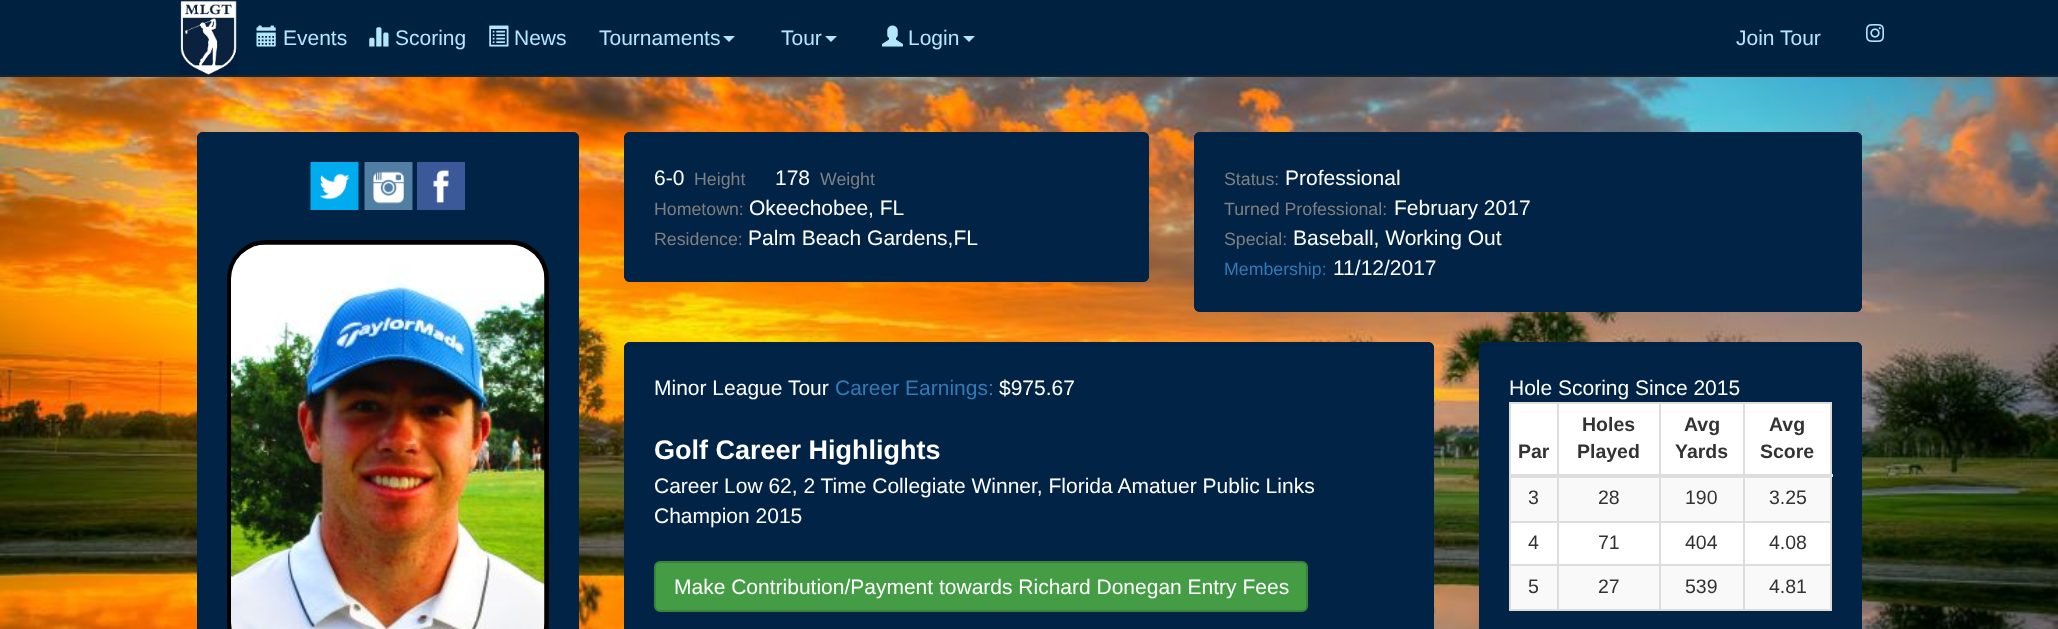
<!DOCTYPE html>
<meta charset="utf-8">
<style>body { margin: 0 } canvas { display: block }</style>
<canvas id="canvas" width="2058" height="629"></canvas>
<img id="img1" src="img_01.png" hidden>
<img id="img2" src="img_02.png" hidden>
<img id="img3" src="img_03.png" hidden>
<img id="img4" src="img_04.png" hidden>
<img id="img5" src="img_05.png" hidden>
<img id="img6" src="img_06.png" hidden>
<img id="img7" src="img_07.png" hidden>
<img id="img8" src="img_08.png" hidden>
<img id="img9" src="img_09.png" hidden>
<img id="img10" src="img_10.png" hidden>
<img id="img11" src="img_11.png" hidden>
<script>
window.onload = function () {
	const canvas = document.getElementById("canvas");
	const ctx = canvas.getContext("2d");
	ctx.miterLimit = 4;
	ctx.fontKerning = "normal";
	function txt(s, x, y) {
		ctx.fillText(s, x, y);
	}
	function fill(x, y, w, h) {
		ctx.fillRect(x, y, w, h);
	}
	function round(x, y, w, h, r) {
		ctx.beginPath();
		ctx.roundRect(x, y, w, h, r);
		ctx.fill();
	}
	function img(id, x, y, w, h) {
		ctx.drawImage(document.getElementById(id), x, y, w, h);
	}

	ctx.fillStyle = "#FFFFFF";
	fill(0, 0, 2058, 629);
	ctx.fillStyle = "#002241";
	fill(0, 0, 2058, 75);
	ctx.fillStyle = "#1A242F";
	fill(0, 75, 2058, 2);
	img("img1", 180, 0, 57, 75);
	img("img2", 256, 25, 20, 22);
	img("img3", 369, 27, 20, 20);
	img("img4", 489, 25, 20, 22);
	ctx.fillStyle = "#B3E6FF";
	ctx.beginPath();
	ctx.moveTo(723, 36);
	ctx.lineTo(735, 36);
	ctx.lineTo(729, 42);
	ctx.closePath();
	ctx.fill();
	ctx.beginPath();
	ctx.moveTo(825, 36);
	ctx.lineTo(837, 36);
	ctx.lineTo(831, 42);
	ctx.closePath();
	ctx.fill();
	img("img5", 882, 25, 21, 22);
	ctx.beginPath();
	ctx.moveTo(963, 36);
	ctx.lineTo(975, 36);
	ctx.lineTo(969, 42);
	ctx.closePath();
	ctx.fill();
	img("img6", 1866, 24, 18, 18);
	img("img7", 0, 77, 2058, 552);
	ctx.fillStyle = "#002346";
	round(197, 132, 382, 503, 6);
	ctx.fillStyle = "#002143";
	ctx.beginPath();
	ctx.moveTo(202, 135);
	ctx.lineTo(573, 135);
	ctx.bezierCurveTo(575, 135, 578, 137, 578, 140);
	ctx.lineTo(578, 139);
	ctx.bezierCurveTo(578, 136, 576, 134, 573, 134);
	ctx.lineTo(203, 134);
	ctx.bezierCurveTo(200, 134, 198, 136, 198, 139);
	ctx.lineTo(198, 140);
	ctx.bezierCurveTo(198, 137, 200, 135, 202, 135);
	ctx.closePath();
	ctx.fill();
	ctx.beginPath();
	ctx.roundRect(198, 133, 380, 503, 5);
	ctx.strokeStyle = "#002346";
	ctx.lineWidth = 2;
	ctx.stroke();
	img("img8", 310, 162, 49, 48);
	img("img9", 364, 162, 49, 48);
	img("img10", 417, 162, 48, 48);
	ctx.beginPath();
	ctx.roundRect(229.5, 242.5, 317, 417, 36.5);
	ctx.strokeStyle = "#000000";
	ctx.lineWidth = 5;
	ctx.stroke();
	img("img11", 231, 244, 314, 385);
	ctx.fillStyle = "#002346";
	round(624, 132, 525, 150, 6);
	ctx.fillStyle = "#002143";
	ctx.beginPath();
	ctx.moveTo(630, 135);
	ctx.lineTo(1143, 135);
	ctx.bezierCurveTo(1145, 135, 1148, 137, 1148, 140);
	ctx.lineTo(1148, 139);
	ctx.bezierCurveTo(1148, 136, 1146, 134, 1143, 134);
	ctx.lineTo(631, 134);
	ctx.bezierCurveTo(628, 134, 626, 136, 626, 139);
	ctx.lineTo(626, 140);
	ctx.bezierCurveTo(626, 137, 628, 135, 630, 135);
	ctx.closePath();
	ctx.fill();
	ctx.beginPath();
	ctx.roundRect(625, 133, 523, 148, 5);
	ctx.strokeStyle = "#002346";
	ctx.lineWidth = 2;
	ctx.stroke();
	ctx.fillStyle = "#002346";
	round(1194, 132, 668, 180, 6);
	ctx.fillStyle = "#002143";
	ctx.beginPath();
	ctx.moveTo(1200, 135);
	ctx.lineTo(1856, 135);
	ctx.bezierCurveTo(1858, 135, 1860, 137, 1860, 140);
	ctx.lineTo(1860, 139);
	ctx.bezierCurveTo(1860, 136, 1858, 134, 1855, 134);
	ctx.lineTo(1201, 134);
	ctx.bezierCurveTo(1198, 134, 1196, 136, 1196, 139);
	ctx.lineTo(1196, 140);
	ctx.bezierCurveTo(1196, 137, 1198, 135, 1200, 135);
	ctx.closePath();
	ctx.fill();
	ctx.beginPath();
	ctx.roundRect(1195, 133, 666, 178, 5);
	ctx.stroke();
	ctx.fillStyle = "#002346";
	round(624, 342, 810, 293, 6);
	ctx.fillStyle = "#002143";
	ctx.beginPath();
	ctx.moveTo(630, 345);
	ctx.lineTo(1428, 345);
	ctx.bezierCurveTo(1430, 345, 1432, 347, 1432, 350);
	ctx.lineTo(1432, 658);
	ctx.lineTo(1431, 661);
	ctx.bezierCurveTo(1432, 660, 1433, 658, 1433, 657);
	ctx.lineTo(1433, 349);
	ctx.bezierCurveTo(1433, 346, 1431, 344, 1428, 344);
	ctx.lineTo(631, 344);
	ctx.bezierCurveTo(628, 344, 626, 346, 626, 349);
	ctx.lineTo(626, 350);
	ctx.bezierCurveTo(626, 347, 628, 345, 630, 345);
	ctx.closePath();
	ctx.fill();
	ctx.beginPath();
	ctx.roundRect(625, 343, 808, 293, 5);
	ctx.stroke();
	ctx.fillStyle = "#449D44";
	ctx.beginPath();
	ctx.roundRect(655, 562, 652, 49, 5);
	ctx.fill();
	ctx.strokeStyle = "#398439";
	ctx.stroke();
	ctx.fillStyle = "#002346";
	round(1479, 342, 383, 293, 6);
	ctx.fillStyle = "#002143";
	ctx.beginPath();
	ctx.moveTo(1485, 345);
	ctx.lineTo(1856, 345);
	ctx.bezierCurveTo(1858, 345, 1860, 347, 1860, 350);
	ctx.lineTo(1860, 349);
	ctx.bezierCurveTo(1860, 346, 1858, 344, 1855, 344);
	ctx.lineTo(1486, 344);
	ctx.bezierCurveTo(1484, 344, 1483, 345, 1482, 346);
	ctx.closePath();
	ctx.fill();
	ctx.beginPath();
	ctx.roundRect(1480, 343, 381, 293, 5);
	ctx.strokeStyle = "#002346";
	ctx.stroke();
	ctx.fillStyle = "#FFFFFF";
	fill(1511, 404, 319, 160);
	ctx.fillStyle = "#DDDDDD";
	fill(1509, 402, 323, 2);
	fill(1830, 402, 2, 209);
	fill(1509, 609, 323, 2);
	fill(1509, 402, 2, 209);
	ctx.fillStyle = "#F9F9F9";
	fill(1511, 478, 319, 43);
	ctx.fillStyle = "#DDDDDD";
	fill(1743, 477, 89, 1);
	fill(1743, 521, 89, 2);
	fill(1743, 564, 89, 2);
	ctx.fillStyle = "#F9F9F9";
	fill(1511, 566, 319, 43);
	ctx.fillStyle = "#DDDDDD";
	fill(1743, 564, 2, 47);
	fill(1659, 564, 86, 2);
	fill(1743, 521, 2, 45);
	fill(1659, 521, 86, 2);
	fill(1743, 402, 2, 120);
	fill(1659, 477, 86, 1);
	fill(1659, 564, 2, 47);
	fill(1557, 564, 104, 2);
	fill(1659, 521, 2, 45);
	fill(1557, 521, 104, 2);
	fill(1659, 402, 2, 120);
	fill(1557, 477, 104, 1);
	fill(1557, 564, 2, 47);
	fill(1509, 564, 50, 2);
	fill(1557, 521, 2, 45);
	fill(1509, 521, 50, 2);
	fill(1557, 402, 2, 120);
	fill(1509, 474, 324, 3);
	fill(1509, 477, 50, 1);
	ctx.font = "21px Liberation Sans";
	ctx.fillStyle = "#B3E6FF";
	txt("Events", 283, 45);
	txt("Scoring", 395, 45);
	txt("News", 514, 45);
	txt("Tournaments", 599, 45);
	txt("Tour", 781, 45);
	txt("Login", 908, 45);
	txt("Join Tour", 1736, 45);
	ctx.fillStyle = "#FFFFFF";
	txt("6-0", 654, 185);
	ctx.font = "17.75px Liberation Sans";
	ctx.fillStyle = "#808080";
	txt("Height", 694, 185);
	ctx.font = "21px Liberation Sans";
	ctx.fillStyle = "#FFFFFF";
	txt("178", 775, 185);
	ctx.font = "17.75px Liberation Sans";
	ctx.fillStyle = "#808080";
	txt("Weight", 820, 185);
	txt("Hometown:", 654, 215);
	ctx.font = "21px Liberation Sans";
	ctx.fillStyle = "#FFFFFF";
	txt("Okeechobee, FL", 749, 215);
	ctx.font = "17.75px Liberation Sans";
	ctx.fillStyle = "#808080";
	txt("Residence:", 654, 245);
	ctx.font = "21px Liberation Sans";
	ctx.fillStyle = "#FFFFFF";
	txt("Palm Beach Gardens,FL", 748, 245);
	ctx.font = "17.75px Liberation Sans";
	ctx.fillStyle = "#808080";
	txt("Status:", 1224, 185);
	ctx.font = "21px Liberation Sans";
	ctx.fillStyle = "#FFFFFF";
	txt("Professional", 1285, 185);
	ctx.font = "17.75px Liberation Sans";
	ctx.fillStyle = "#808080";
	txt("Turned Professional:", 1224, 215);
	ctx.font = "21px Liberation Sans";
	ctx.fillStyle = "#FFFFFF";
	txt("February 2017", 1394, 215);
	ctx.font = "17.75px Liberation Sans";
	ctx.fillStyle = "#808080";
	txt("Special:", 1224, 245);
	ctx.font = "21px Liberation Sans";
	ctx.fillStyle = "#FFFFFF";
	txt("Baseball, Working Out", 1293, 245);
	ctx.font = "17.75px Liberation Sans";
	ctx.fillStyle = "#337AB7";
	txt("Membership:", 1224, 275);
	ctx.font = "21px Liberation Sans";
	ctx.fillStyle = "#FFFFFF";
	txt("11/12/2017", 1333, 275);
	txt("Minor League Tour", 654, 395);
	ctx.fillStyle = "#337AB7";
	txt("Career Earnings:", 835, 395);
	ctx.fillStyle = "#FFFFFF";
	txt("$975.67", 999, 395);
	ctx.font = "bold 27px Liberation Sans";
	txt("Golf Career Highlights", 654, 459);
	ctx.font = "21px Liberation Sans";
	txt("Career Low 62, 2 Time Collegiate Winner, Florida Amatuer Public Links", 654, 493);
	txt("Champion 2015", 654, 523);
	txt("Make Contribution/Payment towards Richard Donegan Entry Fees", 674, 594);
	txt("Hole Scoring Since 2015", 1509, 395);
	ctx.font = "bold 19.5px Liberation Sans";
	ctx.fillStyle = "#333333";
	txt("Par", 1518, 458);
	txt("Holes", 1582, 431);
	txt("Played", 1577, 458);
	txt("Avg", 1684, 431);
	txt("Yards", 1675, 458);
	txt("Avg", 1769, 431);
	txt("Score", 1760, 458);
	ctx.font = "19.5px Liberation Sans";
	txt("3", 1528, 504);
	txt("28", 1598, 504);
	txt("190", 1685, 504);
	txt("3.25", 1769, 504);
	txt("4", 1528, 549);
	txt("71", 1598, 549);
	txt("404", 1685, 549);
	txt("4.08", 1769, 549);
	txt("5", 1528, 593);
	txt("27", 1598, 593);
	txt("539", 1685, 593);
	txt("4.81", 1769, 593);
};
</script>
